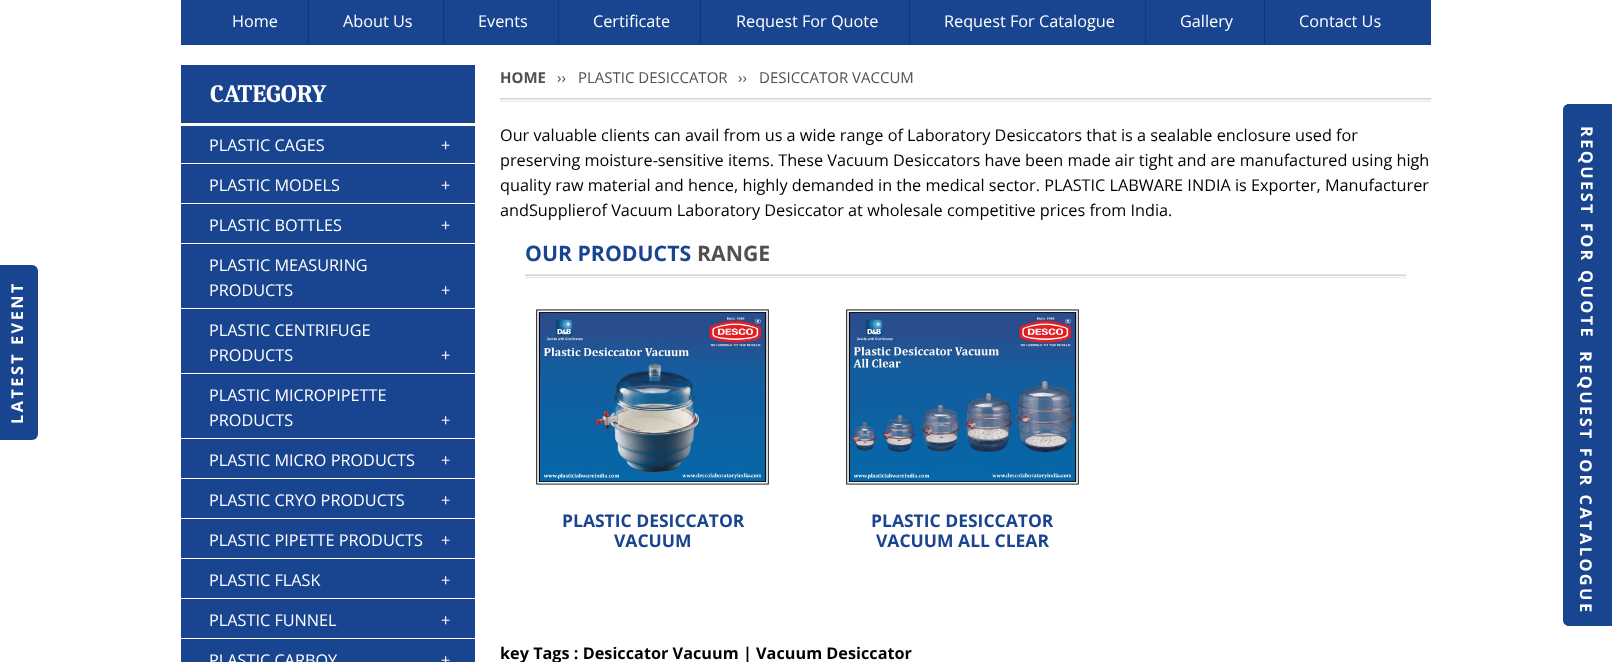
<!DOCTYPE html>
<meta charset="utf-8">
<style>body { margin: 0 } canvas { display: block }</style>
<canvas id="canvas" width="1612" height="662"></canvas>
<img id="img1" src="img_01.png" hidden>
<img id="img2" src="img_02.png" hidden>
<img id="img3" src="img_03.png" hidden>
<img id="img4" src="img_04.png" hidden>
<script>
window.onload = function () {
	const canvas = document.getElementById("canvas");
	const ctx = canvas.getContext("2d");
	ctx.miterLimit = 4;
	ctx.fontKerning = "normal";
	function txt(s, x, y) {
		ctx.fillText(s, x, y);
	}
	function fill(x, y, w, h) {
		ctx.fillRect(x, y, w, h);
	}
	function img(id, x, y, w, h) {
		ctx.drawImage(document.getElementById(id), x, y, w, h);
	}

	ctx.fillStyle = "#FFFFFF";
	fill(0, 0, 1612, 662);
	ctx.fillStyle = "#194590";
	ctx.beginPath();
	ctx.roundRect(0, 265, 38, 175, [0, 6, 6, 0]);
	ctx.fill();
	fill(181, 0, 1250, 45);
	ctx.fillStyle = "#143773";
	fill(308, 0, 1, 45);
	fill(443, 0, 1, 45);
	fill(558, 0, 1, 45);
	fill(700, 0, 1, 45);
	fill(909, 0, 1, 45);
	fill(1145, 0, 1, 45);
	fill(1264, 0, 1, 45);
	ctx.fillStyle = "#194590";
	fill(181, 65, 294, 597);
	ctx.fillStyle = "#FFFFFF";
	fill(181, 123, 294, 3);
	fill(181, 163, 294, 1);
	ctx.fillStyle = "#173E82";
	fill(181, 164, 294, 1);
	ctx.fillStyle = "#FFFFFF";
	fill(181, 203, 294, 1);
	ctx.fillStyle = "#173E82";
	fill(181, 204, 294, 1);
	ctx.fillStyle = "#FFFFFF";
	fill(181, 243, 294, 1);
	ctx.fillStyle = "#173E82";
	fill(181, 244, 294, 1);
	ctx.fillStyle = "#FFFFFF";
	fill(181, 308, 294, 1);
	ctx.fillStyle = "#173E82";
	fill(181, 309, 294, 1);
	ctx.fillStyle = "#FFFFFF";
	fill(181, 373, 294, 1);
	ctx.fillStyle = "#173E82";
	fill(181, 374, 294, 1);
	ctx.fillStyle = "#FFFFFF";
	fill(181, 438, 294, 1);
	ctx.fillStyle = "#173E82";
	fill(181, 439, 294, 1);
	ctx.fillStyle = "#FFFFFF";
	fill(181, 478, 294, 1);
	ctx.fillStyle = "#173E82";
	fill(181, 479, 294, 1);
	ctx.fillStyle = "#FFFFFF";
	fill(181, 518, 294, 1);
	ctx.fillStyle = "#173E82";
	fill(181, 519, 294, 1);
	ctx.fillStyle = "#FFFFFF";
	fill(181, 558, 294, 1);
	ctx.fillStyle = "#173E82";
	fill(181, 559, 294, 1);
	ctx.fillStyle = "#FFFFFF";
	fill(181, 598, 294, 1);
	ctx.fillStyle = "#173E82";
	fill(181, 599, 294, 1);
	ctx.fillStyle = "#FFFFFF";
	fill(181, 638, 294, 1);
	ctx.fillStyle = "#173E82";
	fill(181, 639, 294, 1);
	img("img1", 500, 98, 932, 4);
	img("img2", 525, 274, 882, 5);
	img("img3", 536, 309, 233, 176);
	img("img4", 846, 309, 233, 176);
	ctx.fillStyle = "#194590";
	ctx.beginPath();
	ctx.moveTo(1569, 104);
	ctx.lineTo(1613, 104);
	ctx.lineTo(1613, 354);
	ctx.lineTo(1569, 354);
	ctx.bezierCurveTo(1565.5, 354, 1563, 351.5, 1563, 348);
	ctx.lineTo(1563, 110);
	ctx.bezierCurveTo(1563, 106.5, 1565.5, 104, 1569, 104);
	ctx.closePath();
	ctx.fill();
	ctx.beginPath();
	ctx.moveTo(1569, 336);
	ctx.lineTo(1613, 336);
	ctx.lineTo(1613, 626);
	ctx.lineTo(1569, 626);
	ctx.bezierCurveTo(1565.5, 626, 1563, 623.5, 1563, 620);
	ctx.lineTo(1563, 342);
	ctx.bezierCurveTo(1563, 338.5, 1565.5, 336, 1569, 336);
	ctx.closePath();
	ctx.fill();
	ctx.letterSpacing = "2.5px";
	ctx.font = "bold 16.25px Open Sans";
	ctx.fillStyle = "#FFFFFF";
	ctx.save();
	ctx.translate(23, 424);
	ctx.rotate(-90 * Math.PI / 180);
	ctx.fillText("LATEST EVENT", 0, 0);
	ctx.restore();
	ctx.letterSpacing = "0px";
	ctx.font = "16.25px Open Sans";
	txt("Home", 232, 27);
	txt("About Us", 343, 27);
	txt("Events", 478, 27);
	txt("Certificate", 593, 27);
	txt("Request For Quote", 736, 27);
	txt("Request For Catalogue", 944, 27);
	txt("Gallery", 1180, 27);
	txt("Contact Us", 1299, 27);
	ctx.font = "bold 25px Caladea";
	txt("CATEGORY", 210, 102);
	ctx.font = "16.25px Open Sans";
	txt("PLASTIC CAGES", 209, 151);
	txt("+", 441, 151);
	txt("PLASTIC MODELS", 209, 191);
	txt("+", 441, 191);
	txt("PLASTIC BOTTLES", 209, 231);
	txt("+", 441, 231);
	txt("PLASTIC MEASURING", 209, 271);
	txt("PRODUCTS", 209, 296);
	txt("+", 441, 296);
	txt("PLASTIC CENTRIFUGE", 209, 336);
	txt("PRODUCTS", 209, 361);
	txt("+", 441, 361);
	txt("PLASTIC MICROPIPETTE", 209, 401);
	txt("PRODUCTS", 209, 426);
	txt("+", 441, 426);
	txt("PLASTIC MICRO PRODUCTS", 209, 466);
	txt("+", 441, 466);
	txt("PLASTIC CRYO PRODUCTS", 209, 506);
	txt("+", 441, 506);
	txt("PLASTIC PIPETTE PRODUCTS", 209, 546);
	txt("+", 441, 546);
	txt("PLASTIC FLASK", 209, 586);
	txt("+", 441, 586);
	txt("PLASTIC FUNNEL", 209, 626);
	txt("+", 441, 626);
	txt("PLASTIC CARBOY", 209, 666);
	txt("+", 441, 666);
	ctx.font = "bold 15px Open Sans";
	ctx.fillStyle = "#505050";
	txt("HOME", 500, 83);
	ctx.font = "15px Open Sans";
	txt("››", 557, 83);
	txt("PLASTIC DESICCATOR", 578, 83);
	txt("››", 738, 83);
	txt("DESICCATOR VACCUM", 759, 83);
	ctx.font = "16.25px Open Sans";
	ctx.fillStyle = "#000000";
	txt("Our valuable clients can avail from us a wide range of Laboratory Desiccators that is a sealable enclosure used for", 500, 141);
	txt("preserving moisture-sensitive items. These Vacuum Desiccators have been made air tight and are manufactured using high", 500, 166);
	txt("quality raw material and hence, highly demanded in the medical sector. PLASTIC LABWARE INDIA is Exporter, Manufacturer", 500, 191);
	txt("andSupplierof Vacuum Laboratory Desiccator at wholesale competitive prices from India.", 500, 216);
	ctx.font = "bold 21.25px Open Sans";
	ctx.fillStyle = "#194590";
	txt("OUR PRODUCTS", 525, 261);
	ctx.fillStyle = "#505050";
	txt("RANGE", 697, 261);
	ctx.font = "bold 17.5px Open Sans";
	ctx.fillStyle = "#194590";
	txt("PLASTIC DESICCATOR", 562, 527);
	txt("VACUUM", 614, 547);
	txt("PLASTIC DESICCATOR", 871, 527);
	txt("VACUUM ALL CLEAR", 876, 547);
	ctx.font = "bold 16.25px Open Sans";
	ctx.fillStyle = "#000000";
	txt("key Tags : Desiccator Vacuum | Vacuum Desiccator", 500, 659);
	ctx.letterSpacing = "2.5px";
	ctx.fillStyle = "#FFFFFF";
	ctx.save();
	ctx.translate(1581, 126);
	ctx.rotate(90 * Math.PI / 180);
	ctx.fillText("REQUEST FOR", 0, 0);
	ctx.restore();
	ctx.save();
	ctx.translate(1581, 270);
	ctx.rotate(90 * Math.PI / 180);
	ctx.fillText("QUOTE", 0, 0);
	ctx.restore();
	ctx.save();
	ctx.translate(1580, 351);
	ctx.rotate(90 * Math.PI / 180);
	ctx.fillText("REQUEST FOR CATALOGUE", 0, 0);
	ctx.restore();
};
</script>
